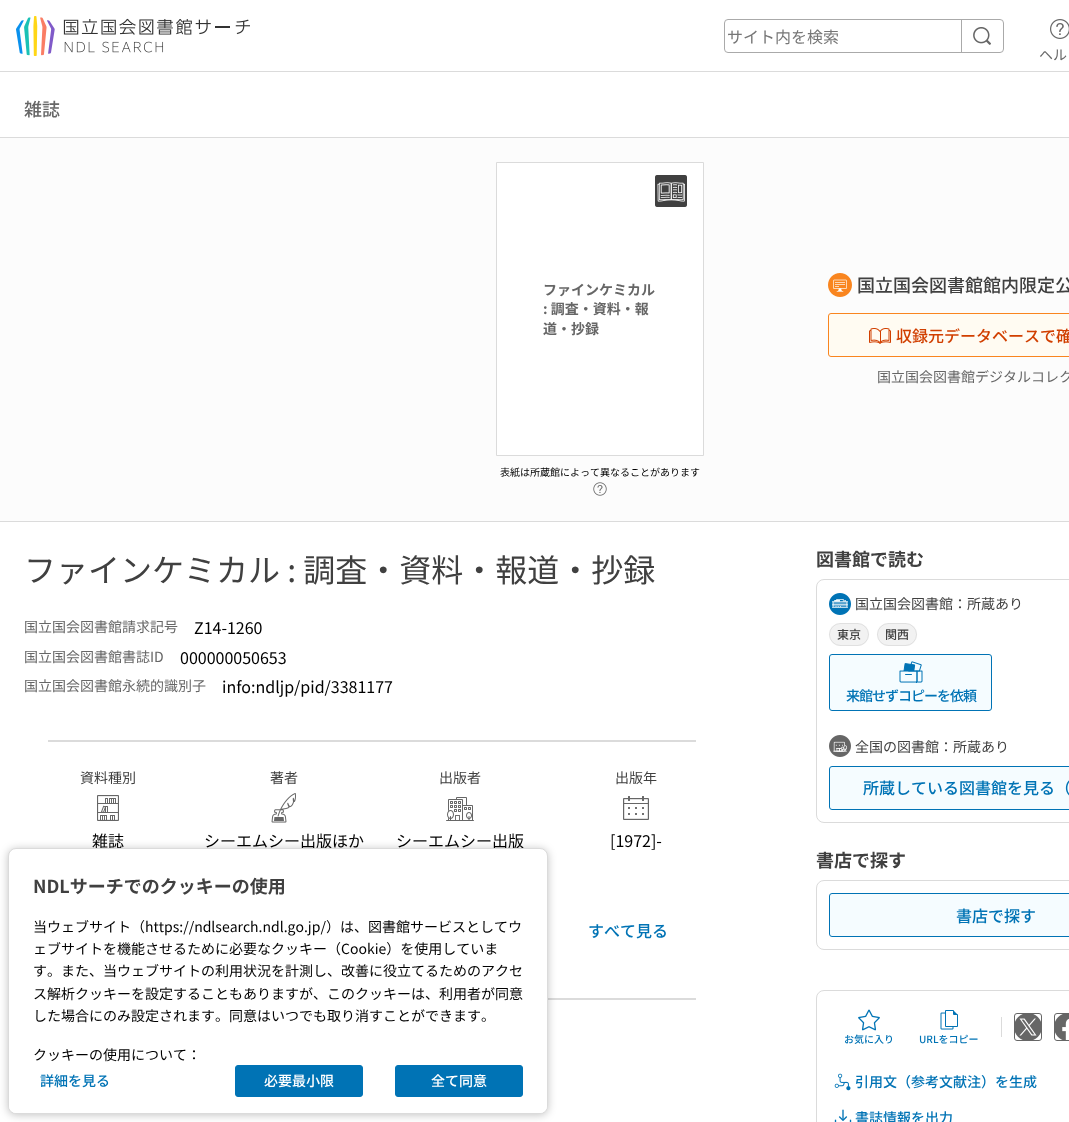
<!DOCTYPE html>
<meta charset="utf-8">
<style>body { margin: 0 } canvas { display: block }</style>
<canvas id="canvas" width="1069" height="1122"></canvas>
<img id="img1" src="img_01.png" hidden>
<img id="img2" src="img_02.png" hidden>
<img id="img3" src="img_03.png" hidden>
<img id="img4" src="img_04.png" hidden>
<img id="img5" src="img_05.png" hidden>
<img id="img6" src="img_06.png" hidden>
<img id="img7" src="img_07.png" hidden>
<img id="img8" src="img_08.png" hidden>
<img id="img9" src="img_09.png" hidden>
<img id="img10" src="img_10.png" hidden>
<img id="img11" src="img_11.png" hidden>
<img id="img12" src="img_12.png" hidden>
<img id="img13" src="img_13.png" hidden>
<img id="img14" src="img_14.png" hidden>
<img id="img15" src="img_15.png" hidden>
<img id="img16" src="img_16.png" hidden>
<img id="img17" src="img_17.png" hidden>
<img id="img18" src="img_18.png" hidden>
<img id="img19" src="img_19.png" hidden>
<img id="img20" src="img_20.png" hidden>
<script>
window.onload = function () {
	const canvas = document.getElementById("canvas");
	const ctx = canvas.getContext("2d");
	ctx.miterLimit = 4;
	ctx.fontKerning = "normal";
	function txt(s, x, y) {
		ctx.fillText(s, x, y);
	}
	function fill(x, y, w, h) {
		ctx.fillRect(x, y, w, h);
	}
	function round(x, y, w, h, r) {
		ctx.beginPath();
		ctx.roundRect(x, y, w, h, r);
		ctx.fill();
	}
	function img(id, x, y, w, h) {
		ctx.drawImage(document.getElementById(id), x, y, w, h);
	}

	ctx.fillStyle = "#FFFFFF";
	fill(0, 0, 1069, 1122);
	ctx.fillStyle = "#DBDBDB";
	fill(0, 71, 1069, 1);
	img("img1", 16, 16, 234, 40);
	ctx.beginPath();
	ctx.roundRect(724.5, 19.5, 279, 33, 3.5);
	ctx.strokeStyle = "#AAAAAA";
	ctx.stroke();
	ctx.fillStyle = "#AAAAAA";
	fill(961, 19, 1, 34);
	img("img2", 973, 27, 18, 18);
	img("img3", 1050, 19, 19, 20);
	ctx.fillStyle = "#FCFCFC";
	fill(0, 138, 1069, 383);
	ctx.fillStyle = "#DBDBDB";
	fill(0, 137, 1069, 1);
	fill(0, 521, 1069, 1);
	ctx.fillStyle = "#FFFFFF";
	ctx.beginPath();
	ctx.rect(496.5, 162.5, 207, 293);
	ctx.fill();
	ctx.strokeStyle = "#DBDBDB";
	ctx.stroke();
	img("img4", 655, 175, 32, 32);
	img("img5", 593, 482, 14, 14);
	img("img6", 828, 273, 24, 24);
	ctx.fillStyle = "#FFFBF2";
	ctx.beginPath();
	ctx.roundRect(828.5, 313.5, 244, 43, 2.5);
	ctx.fill();
	ctx.strokeStyle = "#F9851F";
	ctx.stroke();
	img("img7", 869, 328, 22, 16);
	ctx.fillStyle = "#DBDBDB";
	fill(48, 740, 648, 2);
	img("img8", 97, 795, 22, 26);
	img("img9", 271, 793, 25, 30);
	img("img10", 446, 797, 28, 24);
	img("img11", 623, 796, 26, 24);
	fill(548, 998, 148, 2);
	ctx.beginPath();
	ctx.roundRect(816.5, 579.5, 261, 243, 7.5);
	ctx.strokeStyle = "#DBDBDB";
	ctx.stroke();
	img("img12", 829, 593, 22, 22);
	ctx.fillStyle = "#F2F2F2";
	round(829, 623, 40, 23, 11.5);
	ctx.beginPath();
	ctx.roundRect(829.5, 623.5, 39, 22, 11);
	ctx.strokeStyle = "rgba(64, 64, 64, 0.1)";
	ctx.stroke();
	round(877, 623, 40, 23, 11.5);
	ctx.beginPath();
	ctx.roundRect(877.5, 623.5, 39, 22, 11);
	ctx.stroke();
	ctx.fillStyle = "#F5FCFF";
	ctx.beginPath();
	ctx.roundRect(829.5, 654.5, 162, 56, 2.5);
	ctx.fill();
	ctx.strokeStyle = "#0073B5";
	ctx.stroke();
	img("img13", 899, 661, 24, 22);
	img("img14", 829, 735, 22, 22);
	ctx.beginPath();
	ctx.roundRect(829.5, 766.5, 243, 43, 2.5);
	ctx.fill();
	ctx.stroke();
	ctx.beginPath();
	ctx.roundRect(816.5, 880.5, 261, 69, 7.5);
	ctx.strokeStyle = "#DBDBDB";
	ctx.stroke();
	ctx.beginPath();
	ctx.roundRect(829.5, 893.5, 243, 43, 2.5);
	ctx.fill();
	ctx.strokeStyle = "#0073B5";
	ctx.stroke();
	ctx.beginPath();
	ctx.roundRect(816.5, 990.5, 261, 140, 7.5);
	ctx.strokeStyle = "#DBDBDB";
	ctx.stroke();
	ctx.fillStyle = "#DBDBDB";
	fill(1001, 1017, 1, 20);
	ctx.beginPath();
	ctx.roundRect(1014.5, 1013.5, 27, 27, 2.5);
	ctx.strokeStyle = "#666666";
	ctx.stroke();
	img("img15", 1015, 1014, 26, 26);
	ctx.beginPath();
	ctx.roundRect(1054.5, 1013.5, 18, 27, 2.5);
	ctx.stroke();
	img("img16", 1055, 1014, 14, 26);
	img("img17", 858, 1009, 22, 22);
	img("img18", 940, 1010, 18, 20);
	img("img19", 834, 1073, 17, 18);
	img("img20", 834, 1109, 18, 13);
	ctx.fillStyle = "rgba(0, 0, 0, 0.24)";
	ctx.filter = "blur(4px)";
	ctx.beginPath();
	ctx.roundRect(8, 849, 540, 266, 8);
	ctx.fill();
	ctx.filter = "none";
	ctx.font = "16px Noto Sans JP";
	ctx.fillStyle = "#767676";
	txt("サイト内を検索", 727, 43);
	ctx.font = "14px Noto Sans JP";
	ctx.fillStyle = "#666666";
	txt("ヘル", 1039, 60);
	ctx.font = "500 18px Noto Sans JP";
	txt("雑誌", 24, 116);
	ctx.font = "bold 14px Noto Sans JP";
	txt("ファインケミカル", 543, 295);
	txt(": 調査・資料・報", 543, 314);
	txt("道・抄録", 543, 334);
	ctx.font = "10px Noto Sans JP";
	ctx.fillStyle = "#000000";
	txt("表紙は所蔵館によって異なることがあります", 500, 476);
	ctx.font = "500 18px Noto Sans JP";
	ctx.fillStyle = "#404040";
	txt("国立国会図書館館内限定公", 857, 292);
	ctx.font = "500 16px Noto Sans JP";
	ctx.fillStyle = "#D13F00";
	txt("収録元データベースで確", 896, 342);
	ctx.font = "14px Noto Sans JP";
	ctx.fillStyle = "#666666";
	txt("国立国会図書館デジタルコレク", 877, 382);
	ctx.font = "32px Noto Sans JP";
	ctx.fillStyle = "#404040";
	txt("ファインケミカル : 調査・資料・報道・抄録", 24, 582);
	ctx.font = "14px Noto Sans JP";
	ctx.fillStyle = "#666666";
	txt("国立国会図書館請求記号", 24, 632);
	ctx.font = "16px Noto Sans JP";
	ctx.fillStyle = "#000000";
	txt("Z14-1260", 194, 634);
	ctx.font = "14px Noto Sans JP";
	ctx.fillStyle = "#666666";
	txt("国立国会図書館書誌ID", 24, 662);
	ctx.font = "16px Noto Sans JP";
	ctx.fillStyle = "#000000";
	txt("000000050653", 180, 664);
	ctx.font = "14px Noto Sans JP";
	ctx.fillStyle = "#666666";
	txt("国立国会図書館永続的識別子", 24, 691);
	ctx.font = "16px Noto Sans JP";
	ctx.fillStyle = "#000000";
	txt("info:ndljp/pid/3381177", 222, 693);
	ctx.font = "14px Noto Sans JP";
	ctx.fillStyle = "#404040";
	txt("資料種別", 80, 783);
	ctx.font = "16px Noto Sans JP";
	ctx.fillStyle = "#000000";
	txt("雑誌", 92, 847);
	ctx.font = "14px Noto Sans JP";
	ctx.fillStyle = "#404040";
	txt("著者", 270, 783);
	ctx.font = "16px Noto Sans JP";
	ctx.fillStyle = "#000000";
	txt("シーエムシー出版ほか", 204, 847);
	ctx.font = "14px Noto Sans JP";
	ctx.fillStyle = "#404040";
	txt("出版者", 439, 783);
	ctx.font = "16px Noto Sans JP";
	ctx.fillStyle = "#000000";
	txt("シーエムシー出版", 396, 847);
	ctx.font = "14px Noto Sans JP";
	ctx.fillStyle = "#404040";
	txt("出版年", 615, 783);
	ctx.font = "16px Noto Sans JP";
	ctx.fillStyle = "#000000";
	txt("[1972]-", 610, 847);
	ctx.font = "500 16px Noto Sans JP";
	ctx.fillStyle = "#0073B5";
	txt("すべて見る", 588, 937);
	ctx.font = "bold 18px Noto Sans JP";
	ctx.fillStyle = "#404040";
	txt("図書館で読む", 816, 566);
	ctx.font = "14px Noto Sans JP";
	txt("国立国会図書館：所蔵あり", 855, 609);
	ctx.font = "500 12px Noto Sans JP";
	txt("東京", 837, 639);
	txt("関西", 885, 639);
	ctx.letterSpacing = "-1px";
	ctx.font = "500 14px Noto Sans JP";
	ctx.fillStyle = "#0073B5";
	txt("来館せずコピーを依頼", 846, 701);
	ctx.letterSpacing = "0px";
	ctx.font = "14px Noto Sans JP";
	ctx.fillStyle = "#404040";
	txt("全国の図書館：所蔵あり", 855, 752);
	ctx.font = "500 16px Noto Sans JP";
	ctx.fillStyle = "#0073B5";
	txt("所蔵している図書館を見る（", 863, 794);
	ctx.font = "bold 18px Noto Sans JP";
	ctx.fillStyle = "#404040";
	txt("書店で探す", 816, 867);
	ctx.font = "500 16px Noto Sans JP";
	ctx.fillStyle = "#0073B5";
	txt("書店で探す", 956, 922);
	ctx.font = "500 10px Noto Sans JP";
	txt("お気に入り", 844, 1043);
	txt("URLをコピー", 919, 1043);
	ctx.font = "500 14px Noto Sans JP";
	txt("引用文（参考文献注）を生成", 855, 1087);
	txt("書誌情報を出力", 855, 1123);
	ctx.fillStyle = "#FFFFFF";
	ctx.beginPath();
	ctx.roundRect(8.5, 848.5, 539, 265, 7.5);
	ctx.fill();
	ctx.strokeStyle = "#DBDBDB";
	ctx.stroke();
	ctx.font = "bold 18px Noto Sans JP";
	ctx.fillStyle = "#404040";
	txt("NDLサーチでのクッキーの使用", 33, 893);
	ctx.font = "14px Noto Sans JP";
	ctx.fillStyle = "#000000";
	txt("当ウェブサイト（https://ndlsearch.ndl.go.jp/）は、図書館サービスとしてウ", 33, 932);
	txt("ェブサイトを機能させるために必要なクッキー（Cookie）を使用していま", 33, 954);
	txt("す。また、当ウェブサイトの利用状況を計測し、改善に役立てるためのアクセ", 33, 976);
	txt("ス解析クッキーを設定することもありますが、このクッキーは、利用者が同意", 33, 999);
	txt("した場合にのみ設定されます。同意はいつでも取り消すことができます。", 33, 1021);
	ctx.fillStyle = "#FFFFFF";
	ctx.beginPath();
	ctx.roundRect(9, 1027, 538, 86, [0, 0, 7, 7]);
	ctx.fill();
	ctx.fillStyle = "#000000";
	txt("クッキーの使用について：", 33, 1060);
	ctx.font = "500 14px Noto Sans JP";
	ctx.fillStyle = "#0073B5";
	txt("詳細を見る", 40, 1086);
	ctx.beginPath();
	ctx.roundRect(235.5, 1065.5, 127, 31, 2.5);
	ctx.fill();
	ctx.strokeStyle = "#0073B5";
	ctx.stroke();
	ctx.fillStyle = "#FFFFFF";
	txt("必要最小限", 264, 1086);
	ctx.fillStyle = "#0073B5";
	ctx.beginPath();
	ctx.roundRect(395.5, 1065.5, 127, 31, 2.5);
	ctx.fill();
	ctx.stroke();
	ctx.fillStyle = "#FFFFFF";
	txt("全て同意", 431, 1086);
};
</script>
